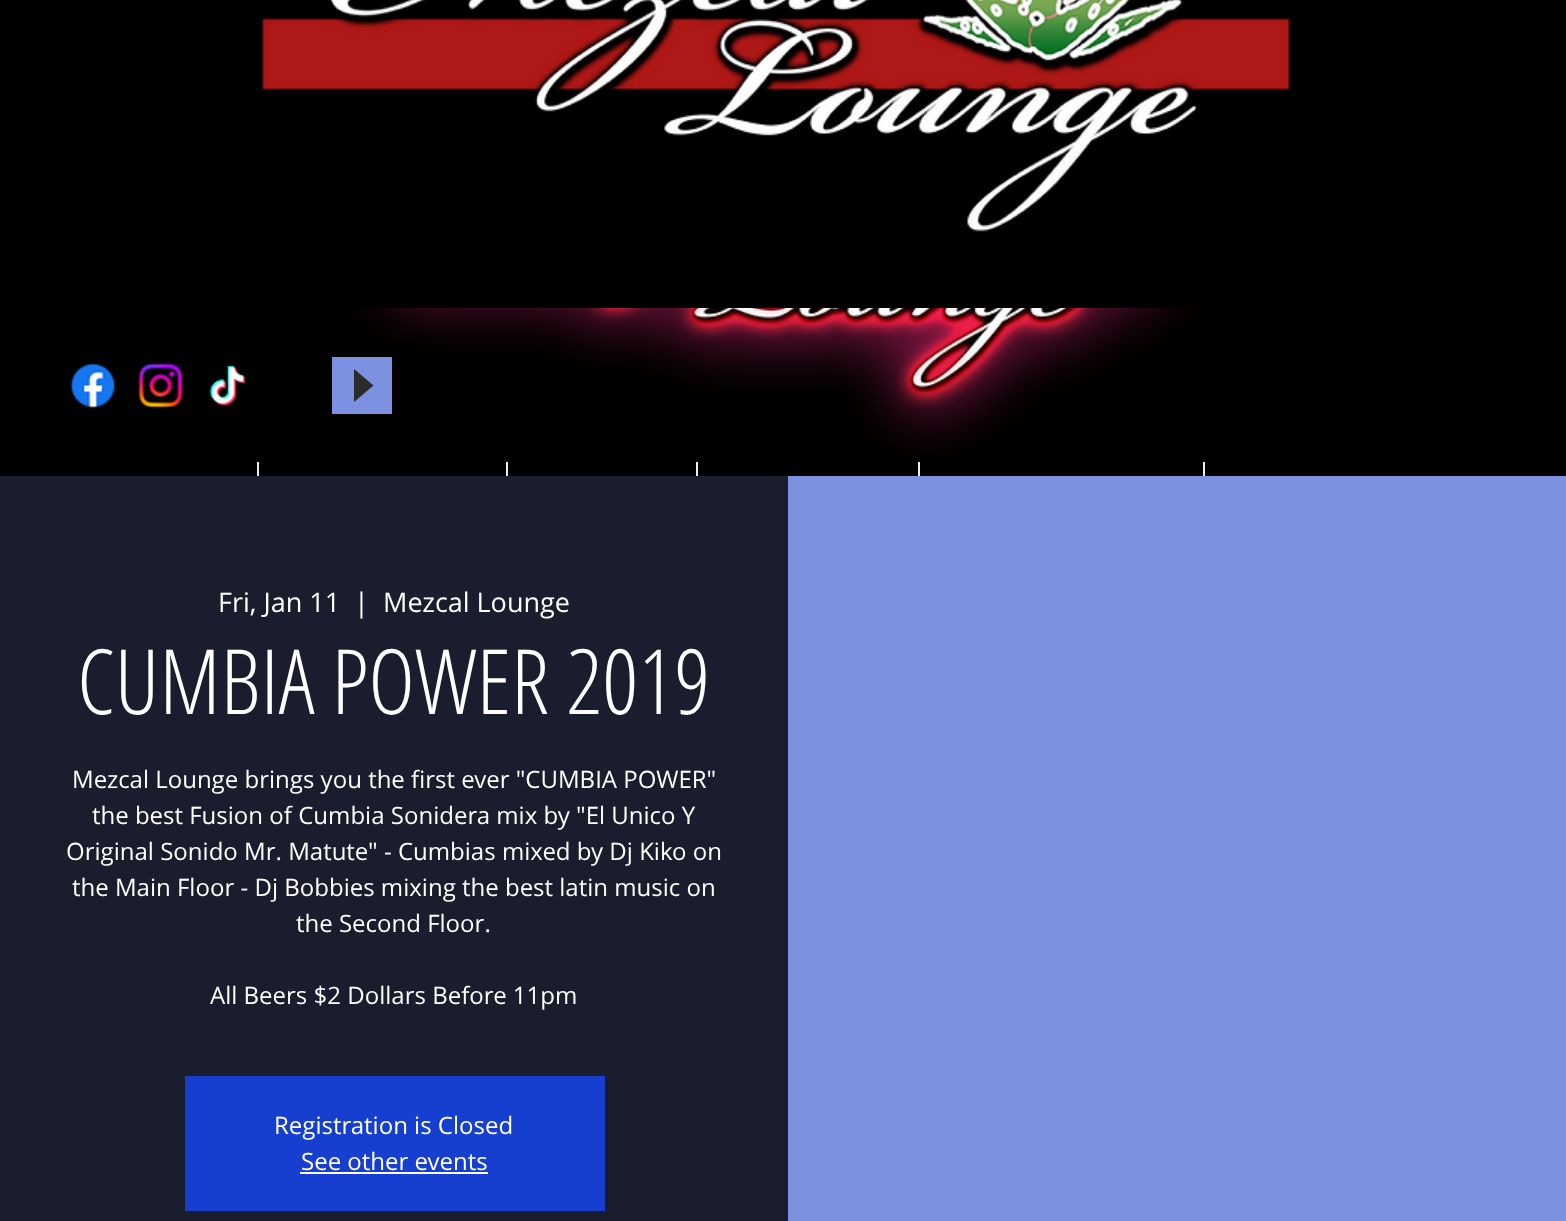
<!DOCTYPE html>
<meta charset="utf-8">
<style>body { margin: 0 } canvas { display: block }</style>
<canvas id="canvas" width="1566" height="1221"></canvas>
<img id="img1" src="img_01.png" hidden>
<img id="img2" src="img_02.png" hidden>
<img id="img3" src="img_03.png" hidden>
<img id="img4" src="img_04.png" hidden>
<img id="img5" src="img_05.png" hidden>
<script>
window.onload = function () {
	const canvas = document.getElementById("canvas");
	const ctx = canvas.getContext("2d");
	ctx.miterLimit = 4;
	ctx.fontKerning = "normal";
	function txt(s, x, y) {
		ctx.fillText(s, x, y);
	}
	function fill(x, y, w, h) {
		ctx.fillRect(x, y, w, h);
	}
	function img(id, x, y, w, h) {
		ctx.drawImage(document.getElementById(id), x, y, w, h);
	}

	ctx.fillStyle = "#000000";
	fill(0, 0, 1566, 1221);
	img("img1", 70, 362, 46, 47);
	img("img2", 138, 362, 46, 47);
	img("img3", 209, 365, 38, 42);
	ctx.fillStyle = "#7C91DF";
	fill(332, 357, 60, 57);
	ctx.fillStyle = "#2B2B2B";
	ctx.beginPath();
	ctx.moveTo(354, 402);
	ctx.lineTo(354, 369);
	ctx.lineTo(373.5, 385.5);
	ctx.closePath();
	ctx.fill();
	img("img4", 350, 308, 849, 147);
	ctx.fillStyle = "#ECECEC";
	fill(257, 462, 2, 14);
	fill(506, 462, 2, 14);
	fill(696, 462, 2, 14);
	fill(918, 462, 2, 14);
	fill(1203, 462, 2, 14);
	img("img5", 262, 0, 1029, 232);
	ctx.fillStyle = "#191D2D";
	fill(0, 476, 788, 745);
	ctx.fillStyle = "#173FCF";
	fill(185, 1076, 420, 135);
	ctx.fillStyle = "#FFFFFF";
	fill(300, 1172, 188, 2);
	ctx.fillStyle = "#7C91DF";
	fill(788, 476, 778, 745);
	ctx.font = "27px Open Sans";
	ctx.fillStyle = "#FFFFFF";
	txt("Fri, Jan 11", 218, 612);
	txt("|", 354, 612);
	txt("Mezcal Lounge", 383, 612);
	ctx.font = "300 90px Open Sans Condensed";
	txt("CUMBIA POWER 2019", 77, 714);
	ctx.font = "24px Open Sans";
	txt("Mezcal Lounge brings you the first ever \"CUMBIA POWER\"", 72, 788);
	txt("the best Fusion of Cumbia Sonidera mix by \"El Unico Y", 92, 824);
	txt("Original Sonido Mr. Matute\" - Cumbias mixed by Dj Kiko on", 66, 860);
	txt("the Main Floor - Dj Bobbies mixing the best latin music on", 72, 896);
	txt("the Second Floor.", 296, 932);
	txt("All Beers $2 Dollars Before 11pm", 210, 1004);
	txt("Registration is Closed", 274, 1134);
	txt("See other events", 301, 1170);
};
</script>
